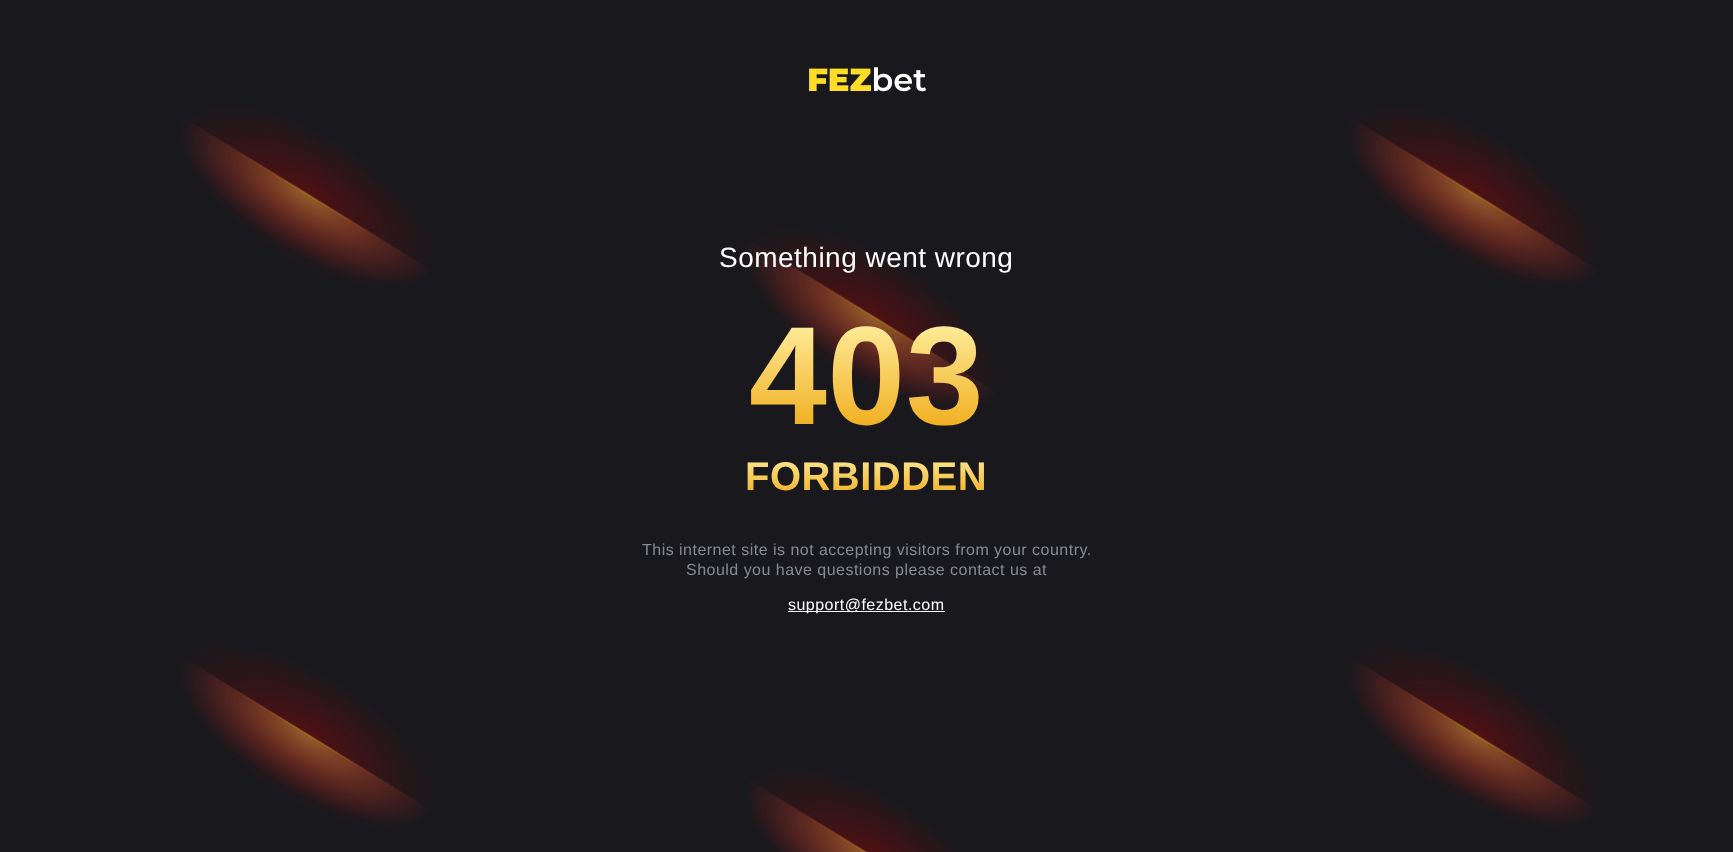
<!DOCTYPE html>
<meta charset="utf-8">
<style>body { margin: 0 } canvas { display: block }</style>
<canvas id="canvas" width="1733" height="852"></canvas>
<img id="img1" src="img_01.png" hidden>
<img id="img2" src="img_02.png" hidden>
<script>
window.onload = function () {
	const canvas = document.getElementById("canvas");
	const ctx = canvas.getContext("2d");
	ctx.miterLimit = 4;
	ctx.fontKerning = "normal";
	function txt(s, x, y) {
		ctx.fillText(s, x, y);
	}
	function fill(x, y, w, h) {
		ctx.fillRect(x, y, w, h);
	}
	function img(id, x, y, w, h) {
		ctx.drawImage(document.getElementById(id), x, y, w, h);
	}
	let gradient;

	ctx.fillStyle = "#19191D";
	fill(0, 0, 1733, 852);
	img("img1", 181, 108, 1416, 744);
	img("img2", 809, 67, 117, 25);
	ctx.fillStyle = "#FFFFFF";
	fill(788, 611, 157, 1);
	ctx.letterSpacing = "0.48px";
	ctx.font = "28px Liberation Sans";
	txt("Something went wrong", 719, 267);
	ctx.font = "bold 140px Liberation Sans";
	gradient = ctx.createLinearGradient(867, 316, 867, 436);
	gradient.addColorStop(0, "#FFF0A2");
	gradient.addColorStop(1, "#F0AA17");
	ctx.fillStyle = gradient;
	txt("403", 749, 424);
	ctx.font = "bold 40px Liberation Sans";
	gradient = ctx.createLinearGradient(867, 452, 867, 500);
	gradient.addColorStop(0, "#FFF0A2");
	gradient.addColorStop(1, "#F0AA17");
	ctx.fillStyle = gradient;
	txt("FORBIDDEN", 745, 490);
	ctx.font = "16px Liberation Sans";
	ctx.fillStyle = "#868A92";
	txt("This internet site is not accepting visitors from your country.", 642, 555);
	txt("Should you have questions please contact us at", 686, 575);
	ctx.fillStyle = "#FFFFFF";
	txt("support@fezbet.com", 788, 610);
};
</script>
